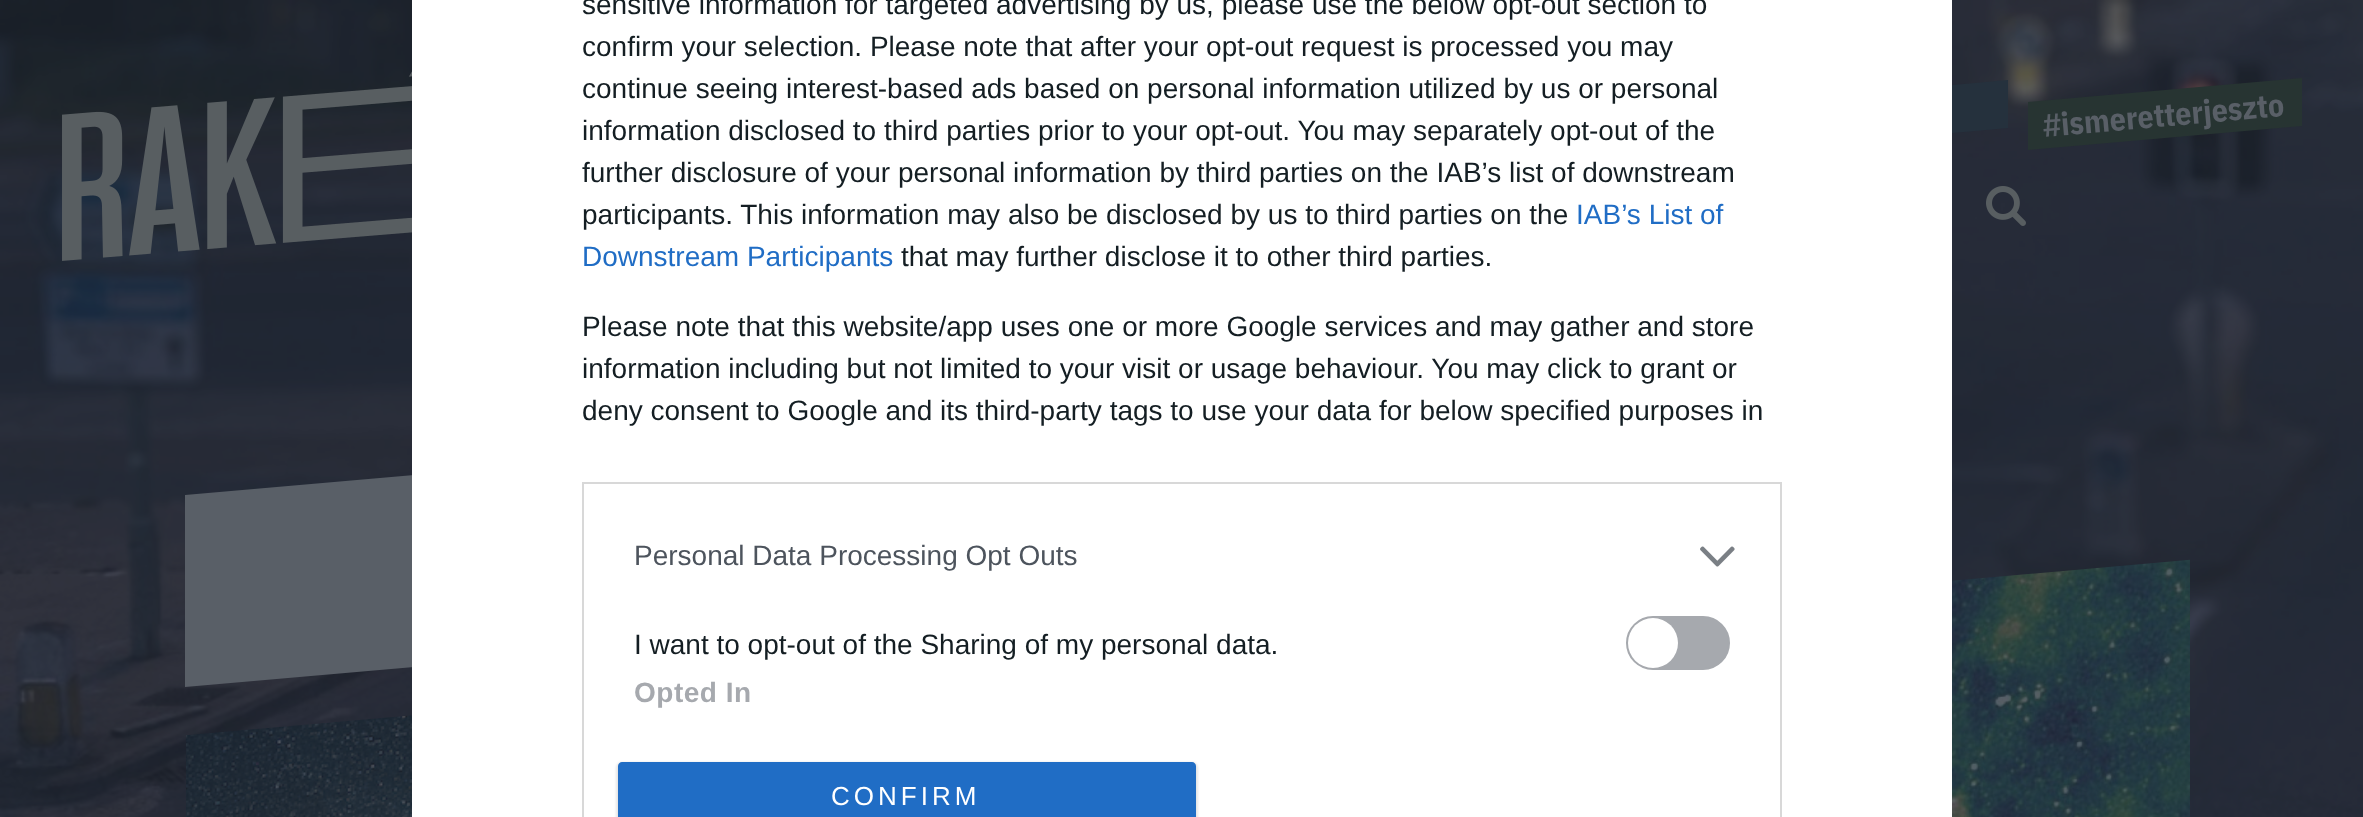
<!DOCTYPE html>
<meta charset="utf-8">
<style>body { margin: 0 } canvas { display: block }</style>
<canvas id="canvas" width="2363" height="817"></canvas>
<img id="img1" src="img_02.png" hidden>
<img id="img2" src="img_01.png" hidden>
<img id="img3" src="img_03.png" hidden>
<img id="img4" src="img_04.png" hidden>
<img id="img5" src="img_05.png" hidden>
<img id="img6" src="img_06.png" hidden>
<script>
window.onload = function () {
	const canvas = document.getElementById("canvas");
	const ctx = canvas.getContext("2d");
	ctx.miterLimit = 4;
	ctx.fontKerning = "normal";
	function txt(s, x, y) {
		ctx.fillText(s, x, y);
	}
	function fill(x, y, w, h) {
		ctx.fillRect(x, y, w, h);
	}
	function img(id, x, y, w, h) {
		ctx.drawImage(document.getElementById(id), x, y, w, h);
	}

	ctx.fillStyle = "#FFFFFF";
	fill(0, 0, 2363, 817);
	img("img1", 0, 0, 2363, 817);
	ctx.fillStyle = "#595F67";
	ctx.beginPath();
	ctx.moveTo(185, 495);
	ctx.lineTo(586, 460);
	ctx.lineTo(586, 652);
	ctx.lineTo(185, 687);
	ctx.closePath();
	ctx.fill();
	ctx.fillStyle = "#25313D";
	ctx.beginPath();
	ctx.moveTo(1787, 100);
	ctx.lineTo(2008, 80);
	ctx.lineTo(2008, 128);
	ctx.lineTo(1787, 148);
	ctx.closePath();
	ctx.fill();
	ctx.fillStyle = "#FFFFFF";
	fill(412, 0, 1540, 817);
	ctx.strokeStyle = "#D8D8D8";
	ctx.lineWidth = 2;
	ctx.strokeRect(583, 483, 1198, 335);
	img("img2", 1700, 546, 35, 21);
	ctx.fillStyle = "#A6A9AE";
	ctx.beginPath();
	ctx.roundRect(1627, 617, 102, 52, 26);
	ctx.fill();
	ctx.strokeStyle = "#A6A9AE";
	ctx.stroke();
	ctx.fillStyle = "#FFFFFF";
	ctx.beginPath();
	ctx.arc(1653, 643, 25, 0, Math.PI * 2);
	ctx.fill();
	ctx.fillStyle = "rgba(0, 0, 0, 0.1)";
	ctx.filter = "blur(1px)";
	ctx.beginPath();
	ctx.roundRect(616, 762, 582, 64, 6);
	ctx.fill();
	ctx.filter = "none";
	ctx.fillStyle = "#206DC5";
	ctx.beginPath();
	ctx.moveTo(622, 762);
	ctx.lineTo(1192, 762);
	ctx.bezierCurveTo(1194, 762, 1196, 764, 1196, 766);
	ctx.lineTo(1196, 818);
	ctx.lineTo(618, 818);
	ctx.lineTo(618, 766);
	ctx.bezierCurveTo(618, 764, 620, 762, 622, 762);
	ctx.closePath();
	ctx.fill();
	img("img3", 186, 715, 226, 102);
	img("img4", 1952, 559, 238, 258);
	img("img5", 62, 71, 350, 190);
	ctx.fillStyle = "#273432";
	ctx.beginPath();
	ctx.moveTo(2028, 102);
	ctx.lineTo(2302, 78);
	ctx.lineTo(2302, 126);
	ctx.lineTo(2028, 150);
	ctx.closePath();
	ctx.fill();
	img("img6", 1986, 186, 40, 40);
	ctx.font = "28px Liberation Sans";
	ctx.fillStyle = "#141E23";
	txt("sensitive information for targeted advertising by us, please use the below opt-out section to", 582, 14);
	txt("confirm your selection. Please note that after your opt-out request is processed you may", 582, 56);
	txt("continue seeing interest-based ads based on personal information utilized by us or personal", 582, 98);
	txt("information disclosed to third parties prior to your opt-out. You may separately opt-out of the", 582, 140);
	txt("further disclosure of your personal information by third parties on the IAB’s list of downstream", 582, 182);
	txt("participants. This information may also be disclosed by us to third parties on the", 582, 224);
	ctx.fillStyle = "#206DC5";
	txt("IAB’s List of", 1576, 224);
	txt("Downstream Participants", 582, 266);
	ctx.fillStyle = "#141E23";
	txt("that may further disclose it to other third parties.", 901, 266);
	txt("Please note that this website/app uses one or more Google services and may gather and store", 582, 336);
	txt("information including but not limited to your visit or usage behaviour. You may click to grant or", 582, 378);
	txt("deny consent to Google and its third-party tags to use your data for below specified purposes in", 582, 420);
	ctx.fillStyle = "#4D545D";
	txt("Personal Data Processing Opt Outs", 634, 565);
	ctx.fillStyle = "#141E23";
	txt("I want to opt-out of the Sharing of my personal data.", 634, 654);
	ctx.letterSpacing = "0.5px";
	ctx.font = "bold 28px Liberation Sans";
	ctx.fillStyle = "#A6A9AE";
	txt("Opted In", 634, 702);
	ctx.letterSpacing = "4px";
	ctx.font = "26px Liberation Sans";
	ctx.fillStyle = "#FFFFFF";
	txt("CONFIRM", 831, 805);
	ctx.letterSpacing = "0px";
	ctx.font = "bold 32px IBM Plex Sans Condensed";
	ctx.fillStyle = "#595F67";
	ctx.save();
	ctx.translate(2044, 137);
	ctx.rotate(-5 * Math.PI / 180);
	ctx.fillText("#ismeretterjeszto", 0, 0);
	ctx.restore();
};
</script>
